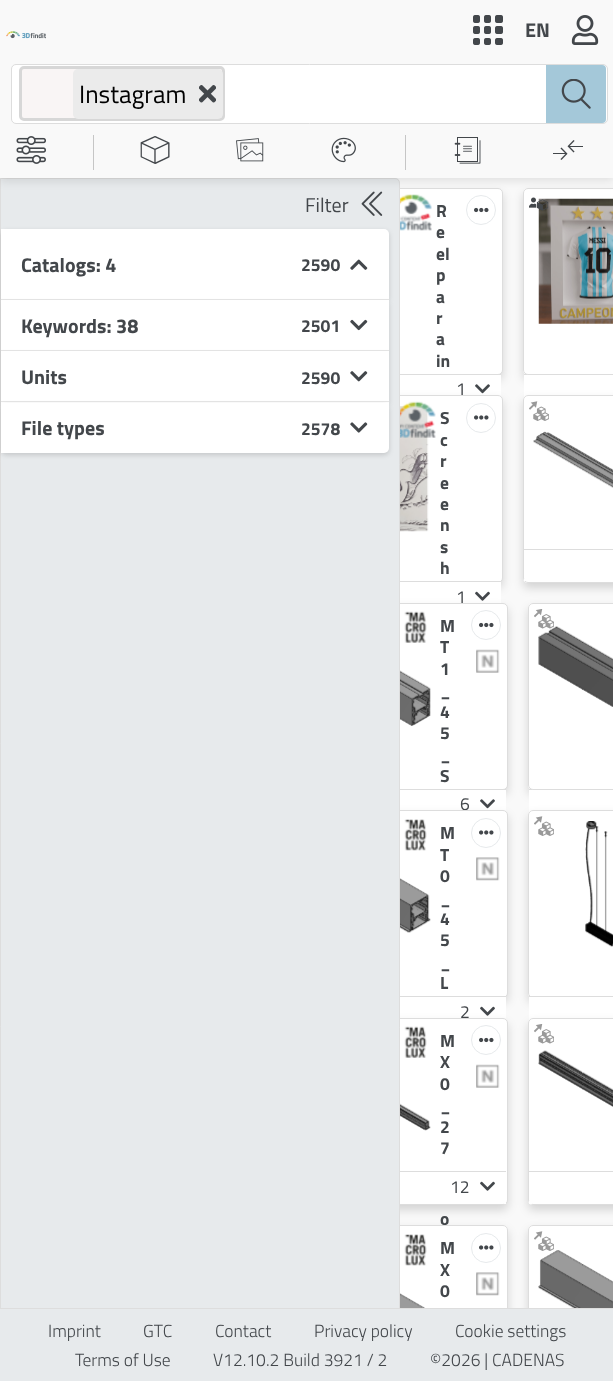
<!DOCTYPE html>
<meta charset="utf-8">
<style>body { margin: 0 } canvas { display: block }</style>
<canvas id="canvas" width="613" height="1381"></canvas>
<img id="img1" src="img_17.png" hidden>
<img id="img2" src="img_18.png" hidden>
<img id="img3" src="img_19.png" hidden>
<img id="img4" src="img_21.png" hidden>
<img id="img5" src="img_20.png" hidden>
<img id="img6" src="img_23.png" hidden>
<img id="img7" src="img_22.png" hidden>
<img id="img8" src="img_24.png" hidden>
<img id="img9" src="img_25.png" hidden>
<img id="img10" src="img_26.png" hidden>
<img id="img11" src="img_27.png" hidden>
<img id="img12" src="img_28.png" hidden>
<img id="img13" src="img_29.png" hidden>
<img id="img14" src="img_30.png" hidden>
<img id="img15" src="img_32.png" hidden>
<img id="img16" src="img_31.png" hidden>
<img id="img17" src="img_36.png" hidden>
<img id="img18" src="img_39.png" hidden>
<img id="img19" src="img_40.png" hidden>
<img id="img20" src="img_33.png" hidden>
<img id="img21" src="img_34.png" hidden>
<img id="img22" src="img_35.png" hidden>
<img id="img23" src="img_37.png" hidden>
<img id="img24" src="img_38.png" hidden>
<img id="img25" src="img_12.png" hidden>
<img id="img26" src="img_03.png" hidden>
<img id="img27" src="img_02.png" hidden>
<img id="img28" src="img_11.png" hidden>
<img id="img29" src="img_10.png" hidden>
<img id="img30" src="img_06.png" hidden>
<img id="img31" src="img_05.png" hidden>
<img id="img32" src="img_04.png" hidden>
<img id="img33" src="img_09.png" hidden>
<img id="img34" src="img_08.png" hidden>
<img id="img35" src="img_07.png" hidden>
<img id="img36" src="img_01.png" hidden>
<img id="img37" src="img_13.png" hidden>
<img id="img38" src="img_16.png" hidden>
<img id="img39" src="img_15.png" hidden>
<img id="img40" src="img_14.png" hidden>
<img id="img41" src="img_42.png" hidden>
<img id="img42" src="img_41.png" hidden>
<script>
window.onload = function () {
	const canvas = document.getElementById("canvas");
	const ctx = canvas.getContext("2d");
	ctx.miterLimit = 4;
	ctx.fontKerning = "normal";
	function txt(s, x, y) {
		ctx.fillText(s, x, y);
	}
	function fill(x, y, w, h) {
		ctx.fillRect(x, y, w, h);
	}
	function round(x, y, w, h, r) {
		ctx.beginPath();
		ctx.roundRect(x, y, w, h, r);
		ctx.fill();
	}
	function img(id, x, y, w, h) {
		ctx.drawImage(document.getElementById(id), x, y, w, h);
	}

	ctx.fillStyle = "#E7EAEC";
	fill(0, 0, 613, 1381);
	ctx.fillStyle = "#F9F9F9";
	fill(395, 178, 218, 1130);
	ctx.fillStyle = "rgba(0, 0, 0, 0.15)";
	ctx.filter = "blur(5px)";
	ctx.beginPath();
	ctx.roundRect(290, 193, 213, 187, 5);
	ctx.fill();
	ctx.filter = "none";
	ctx.fillStyle = "#FFFFFF";
	ctx.beginPath();
	ctx.roundRect(290.5, 188.5, 212, 186, 4.5);
	ctx.fill();
	ctx.strokeStyle = "#DDDDDD";
	ctx.stroke();
	img("img1", 400, 194, 32, 37);
	ctx.beginPath();
	ctx.arc(481, 210, 14.5, 0, Math.PI * 2);
	ctx.strokeStyle = "#E7EAEC";
	ctx.stroke();
	img("img2", 474, 207, 15, 6);
	fill(400, 375, 101, 21);
	ctx.fillStyle = "#DDDDDD";
	fill(499, 374, 2, 1);
	img("img3", 475, 384, 15, 10);
	ctx.fillStyle = "rgba(0, 0, 0, 0.15)";
	ctx.filter = "blur(5px)";
	ctx.beginPath();
	ctx.roundRect(523, 193, 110, 187, 5);
	ctx.fill();
	ctx.filter = "none";
	ctx.fillStyle = "#FFFFFF";
	ctx.beginPath();
	ctx.moveTo(528, 188);
	ctx.lineTo(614, 188);
	ctx.lineTo(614, 375);
	ctx.lineTo(528, 375);
	ctx.bezierCurveTo(525, 375, 523, 373, 523, 370);
	ctx.lineTo(523, 193);
	ctx.bezierCurveTo(523, 190, 525, 188, 528, 188);
	ctx.closePath();
	ctx.fill();
	ctx.beginPath();
	ctx.roundRect(523.5, 188.5, 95, 186, 4.5);
	ctx.strokeStyle = "#DDDDDD";
	ctx.stroke();
	img("img4", 538, 198, 75, 126);
	img("img5", 529, 197, 20, 14);
	fill(524, 375, 89, 22);
	ctx.fillStyle = "#DDDDDD";
	fill(524, 374, 3, 1);
	ctx.fillStyle = "rgba(0, 0, 0, 0.15)";
	ctx.filter = "blur(5px)";
	ctx.beginPath();
	ctx.roundRect(294, 400, 209, 188, 5);
	ctx.fill();
	ctx.filter = "none";
	ctx.fillStyle = "#FFFFFF";
	ctx.beginPath();
	ctx.roundRect(294.5, 395.5, 208, 187, 4.5);
	ctx.fill();
	ctx.stroke();
	img("img6", 400, 406, 29, 126);
	img("img7", 400, 401, 36, 37);
	ctx.beginPath();
	ctx.arc(481, 418, 14.5, 0, Math.PI * 2);
	ctx.strokeStyle = "#E7EAEC";
	ctx.stroke();
	img("img8", 474, 415, 15, 5);
	fill(400, 582, 101, 21);
	ctx.fillStyle = "#DDDDDD";
	fill(400, 581, 101, 1);
	img("img9", 475, 591, 15, 10);
	ctx.fillStyle = "rgba(0, 0, 0, 0.15)";
	ctx.filter = "blur(5px)";
	ctx.beginPath();
	ctx.roundRect(523, 400, 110, 188, 5);
	ctx.fill();
	ctx.filter = "none";
	ctx.fillStyle = "#FFFFFF";
	ctx.beginPath();
	ctx.moveTo(528, 395);
	ctx.lineTo(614, 395);
	ctx.lineTo(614, 583);
	ctx.lineTo(528, 583);
	ctx.bezierCurveTo(525, 583, 523, 581, 523, 578);
	ctx.lineTo(523, 400);
	ctx.bezierCurveTo(523, 397, 525, 395, 528, 395);
	ctx.closePath();
	ctx.fill();
	ctx.beginPath();
	ctx.roundRect(523.5, 395.5, 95, 187, 4.5);
	ctx.strokeStyle = "#DDDDDD";
	ctx.stroke();
	img("img10", 529, 401, 20, 20);
	img("img11", 533, 431, 80, 57);
	fill(524, 579, 1, 2);
	ctx.fillStyle = "#DDDDDD";
	fill(524, 549, 89, 1);
	ctx.fillStyle = "rgba(0, 0, 0, 0.15)";
	ctx.filter = "blur(5px)";
	ctx.beginPath();
	ctx.roundRect(294, 608, 214, 187, 5);
	ctx.fill();
	ctx.filter = "none";
	ctx.fillStyle = "#FFFFFF";
	ctx.beginPath();
	ctx.roundRect(294.5, 603.5, 213, 186, 4.5);
	ctx.fill();
	ctx.stroke();
	img("img12", 404, 611, 23, 32);
	img("img13", 400, 670, 31, 56);
	img("img14", 476, 649, 24, 24);
	ctx.beginPath();
	ctx.arc(486, 625, 14.5, 0, Math.PI * 2);
	ctx.strokeStyle = "#E7EAEC";
	ctx.stroke();
	img("img2", 479, 622, 15, 6);
	fill(400, 790, 106, 21);
	ctx.fillStyle = "#DDDDDD";
	fill(504, 789, 2, 1);
	img("img3", 480, 799, 15, 10);
	ctx.fillStyle = "rgba(0, 0, 0, 0.15)";
	ctx.filter = "blur(5px)";
	ctx.beginPath();
	ctx.roundRect(528, 608, 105, 187, 5);
	ctx.fill();
	ctx.filter = "none";
	ctx.fillStyle = "#FFFFFF";
	ctx.beginPath();
	ctx.moveTo(533, 603);
	ctx.lineTo(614, 603);
	ctx.lineTo(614, 790);
	ctx.lineTo(533, 790);
	ctx.bezierCurveTo(530, 790, 528, 788, 528, 785);
	ctx.lineTo(528, 608);
	ctx.bezierCurveTo(528, 605, 530, 603, 533, 603);
	ctx.closePath();
	ctx.fill();
	ctx.beginPath();
	ctx.roundRect(528.5, 603.5, 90, 186, 4.5);
	ctx.strokeStyle = "#DDDDDD";
	ctx.stroke();
	img("img15", 538, 626, 75, 81);
	img("img16", 534, 609, 20, 20);
	fill(529, 790, 84, 22);
	ctx.fillStyle = "#DDDDDD";
	fill(529, 789, 3, 1);
	ctx.fillStyle = "rgba(0, 0, 0, 0.15)";
	ctx.filter = "blur(5px)";
	ctx.beginPath();
	ctx.roundRect(294, 815, 214, 188, 5);
	ctx.fill();
	ctx.filter = "none";
	ctx.filter = "blur(5px)";
	ctx.beginPath();
	ctx.roundRect(528, 815, 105, 188, 5);
	ctx.fill();
	ctx.filter = "none";
	ctx.fillStyle = "#FFFFFF";
	ctx.beginPath();
	ctx.moveTo(533, 810);
	ctx.lineTo(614, 810);
	ctx.lineTo(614, 998);
	ctx.lineTo(533, 998);
	ctx.bezierCurveTo(530, 998, 528, 996, 528, 993);
	ctx.lineTo(528, 815);
	ctx.bezierCurveTo(528, 812, 530, 810, 533, 810);
	ctx.closePath();
	ctx.fill();
	ctx.beginPath();
	ctx.roundRect(528.5, 810.5, 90, 187, 4.5);
	ctx.stroke();
	img("img10", 534, 816, 20, 20);
	img("img17", 585, 821, 28, 126);
	fill(529, 997, 84, 23);
	ctx.fillStyle = "#DDDDDD";
	fill(529, 996, 84, 1);
	ctx.fillStyle = "rgba(0, 0, 0, 0.15)";
	ctx.filter = "blur(5px)";
	ctx.beginPath();
	ctx.roundRect(528, 1023, 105, 187, 5);
	ctx.fill();
	ctx.filter = "none";
	ctx.fillStyle = "#FFFFFF";
	ctx.beginPath();
	ctx.moveTo(533, 1018);
	ctx.lineTo(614, 1018);
	ctx.lineTo(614, 1205);
	ctx.lineTo(533, 1205);
	ctx.bezierCurveTo(530, 1205, 528, 1203, 528, 1200);
	ctx.lineTo(528, 1023);
	ctx.bezierCurveTo(528, 1020, 530, 1018, 533, 1018);
	ctx.closePath();
	ctx.fill();
	ctx.beginPath();
	ctx.roundRect(528.5, 1018.5, 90, 186, 4.5);
	ctx.stroke();
	img("img18", 534, 1024, 20, 20);
	img("img19", 538, 1050, 75, 57);
	fill(529, 1201, 3, 3);
	ctx.fillStyle = "#DDDDDD";
	fill(529, 1171, 84, 1);
	fill(0, 1308, 613, 1);
	ctx.save();
	ctx.beginPath();
	ctx.rect(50, 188, 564, 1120);
	ctx.clip();
	ctx.fillStyle = "rgba(0, 0, 0, 0.15)";
	ctx.filter = "blur(5px)";
	ctx.beginPath();
	ctx.roundRect(294, 1230, 214, 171, 5);
	ctx.fill();
	ctx.filter = "none";
	ctx.filter = "blur(5px)";
	ctx.beginPath();
	ctx.roundRect(528, 1230, 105, 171, 5);
	ctx.fill();
	ctx.filter = "none";
	ctx.restore();
	ctx.fillStyle = "#FFFFFF";
	ctx.beginPath();
	ctx.moveTo(533, 1225);
	ctx.lineTo(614, 1225);
	ctx.lineTo(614, 1308);
	ctx.lineTo(528, 1308);
	ctx.lineTo(528, 1230);
	ctx.bezierCurveTo(528, 1227, 530, 1225, 533, 1225);
	ctx.closePath();
	ctx.fill();
	ctx.font = "bold 17.5px Titillium Web";
	ctx.fillStyle = "#43474B";
	txt("R", 436, 217);
	txt("e", 436, 238);
	txt("el", 436, 260);
	txt("p", 436, 281);
	txt("a", 436, 303);
	txt("r", 436, 324);
	txt("a", 436, 345);
	txt("in", 436, 367);
	ctx.font = "17.5px Titillium Web";
	txt("1", 456, 395);
	ctx.font = "bold 17.5px Titillium Web";
	txt("S", 440, 424);
	txt("c", 440, 446);
	txt("r", 440, 467);
	txt("e", 440, 489);
	txt("e", 440, 510);
	txt("n", 440, 531);
	txt("s", 440, 553);
	txt("h", 440, 574);
	ctx.font = "17.5px Titillium Web";
	txt("1", 456, 603);
	ctx.font = "bold 17.5px Titillium Web";
	txt("M", 440, 632);
	txt("T", 440, 653);
	txt("1", 440, 675);
	txt("_", 440, 696);
	txt("4", 440, 718);
	txt("5", 440, 739);
	txt("_", 440, 760);
	txt("S", 440, 782);
	ctx.font = "17.5px Titillium Web";
	txt("6", 460, 810);
	ctx.fillStyle = "#FFFFFF";
	ctx.beginPath();
	ctx.roundRect(294.5, 810.5, 213, 187, 4.5);
	ctx.fill();
	ctx.stroke();
	img("img20", 404, 819, 23, 32);
	img("img21", 400, 878, 31, 55);
	ctx.font = "bold 17.5px Titillium Web";
	ctx.fillStyle = "#43474B";
	txt("M", 440, 839);
	txt("T", 440, 861);
	txt("0", 440, 882);
	txt("_", 440, 904);
	txt("4", 440, 925);
	txt("5", 440, 946);
	txt("_", 440, 968);
	txt("L", 440, 989);
	txt("o", 440, 1225);
	img("img22", 476, 857, 24, 24);
	ctx.beginPath();
	ctx.arc(486, 833, 14.5, 0, Math.PI * 2);
	ctx.strokeStyle = "#E7EAEC";
	ctx.stroke();
	img("img8", 479, 830, 15, 5);
	ctx.fillStyle = "#FFFFFF";
	fill(400, 997, 106, 22);
	ctx.fillStyle = "#DDDDDD";
	fill(400, 996, 106, 1);
	ctx.font = "17.5px Titillium Web";
	ctx.fillStyle = "#43474B";
	txt("2", 460, 1018);
	img("img9", 480, 1006, 15, 10);
	ctx.fillStyle = "rgba(0, 0, 0, 0.15)";
	ctx.filter = "blur(5px)";
	ctx.beginPath();
	ctx.roundRect(294, 1023, 214, 187, 5);
	ctx.fill();
	ctx.filter = "none";
	ctx.fillStyle = "#FFFFFF";
	ctx.beginPath();
	ctx.roundRect(294.5, 1018.5, 213, 186, 4.5);
	ctx.fill();
	ctx.strokeStyle = "#DDDDDD";
	ctx.stroke();
	img("img23", 404, 1026, 23, 32);
	img("img24", 400, 1103, 31, 28);
	ctx.font = "bold 17.5px Titillium Web";
	ctx.fillStyle = "#43474B";
	txt("M", 440, 1047);
	txt("X", 440, 1068);
	txt("0", 440, 1090);
	txt("_", 440, 1111);
	txt("2", 440, 1133);
	txt("7", 440, 1154);
	img("img14", 476, 1064, 24, 24);
	ctx.beginPath();
	ctx.arc(486, 1040, 14.5, 0, Math.PI * 2);
	ctx.strokeStyle = "#E7EAEC";
	ctx.stroke();
	img("img2", 479, 1037, 15, 6);
	ctx.fillStyle = "#FFFFFF";
	fill(504, 1203, 2, 1);
	ctx.fillStyle = "#DDDDDD";
	fill(400, 1171, 106, 1);
	ctx.font = "17.5px Titillium Web";
	ctx.fillStyle = "#43474B";
	txt("12", 450, 1193);
	img("img9", 480, 1181, 15, 10);
	ctx.fillStyle = "#FFFFFF";
	ctx.beginPath();
	ctx.roundRect(294, 1225, 214, 83, [5, 5, 0, 0]);
	ctx.fill();
	ctx.font = "300 17.5px Titillium Web";
	ctx.fillStyle = "#43474B";
	txt("Imprint", 48, 1337);
	txt("GTC", 143, 1337);
	txt("Contact", 215, 1337);
	txt("Privacy policy", 314, 1337);
	txt("Cookie settings", 455, 1337);
	txt("Terms of Use", 75, 1366);
	txt("V12.10.2 Build 3921 / 2", 213, 1366);
	txt("©2026 | CADENAS", 430, 1366);
	ctx.save();
	ctx.beginPath();
	ctx.rect(50, 188, 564, 1120);
	ctx.clip();
	ctx.beginPath();
	ctx.roundRect(294.5, 1225.5, 213, 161, 4.5);
	ctx.strokeStyle = "#DDDDDD";
	ctx.stroke();
	ctx.restore();
	ctx.fillStyle = "#E7EAEC";
	ctx.beginPath();
	ctx.roundRect(0, 178, 400, 1130, [0, 5, 0, 0]);
	ctx.fill();
	ctx.save();
	ctx.beginPath();
	ctx.rect(0, 178, 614, 1130);
	ctx.clip();
	ctx.beginPath();
	ctx.moveTo(0.5, 178.5);
	ctx.lineTo(395, 178.5);
	ctx.bezierCurveTo(397.5, 178.5, 399.5, 180.5, 399.5, 183);
	ctx.lineTo(399.5, 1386.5);
	ctx.lineTo(0.5, 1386.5);
	ctx.closePath();
	ctx.strokeStyle = "#DDDDDD";
	ctx.stroke();
	ctx.restore();
	img("img25", 361, 191, 22, 25);
	ctx.fillStyle = "rgba(0, 0, 0, 0.1)";
	ctx.filter = "blur(5px)";
	ctx.beginPath();
	ctx.rect(0, 4, 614, 177);
	ctx.fill();
	ctx.filter = "none";
	ctx.fillStyle = "#F9F9F9";
	fill(0, 0, 613, 178);
	img("img26", 571, 15, 28, 30);
	ctx.font = "bold 20px Titillium Web";
	ctx.fillStyle = "#43474B";
	txt("EN", 525, 37);
	img("img27", 473, 15, 30, 30);
	img("img28", 553, 140, 30, 20);
	img("img29", 454, 137, 27, 27);
	img("img30", 16, 136, 30, 28);
	ctx.fillStyle = "#FFFFFF";
	ctx.beginPath();
	ctx.roundRect(11.5, 64.5, 596, 59, 4.5);
	ctx.fill();
	ctx.strokeStyle = "#DDDDDD";
	ctx.stroke();
	ctx.fillStyle = "#A4C8D9";
	ctx.beginPath();
	ctx.roundRect(546, 65, 60, 58, [0, 4, 4, 0]);
	ctx.fill();
	img("img31", 561, 79, 30, 30);
	ctx.fillStyle = "#F9F5F5";
	ctx.beginPath();
	ctx.roundRect(20.5, 67.5, 203, 52, 3.5);
	ctx.fill();
	ctx.strokeStyle = "#D7D7D7";
	ctx.lineWidth = 3;
	ctx.stroke();
	ctx.fillStyle = "#EBEBEB";
	round(73, 69, 150, 50, 5);
	img("img32", 199, 85, 17, 18);
	ctx.font = "25px Titillium Web";
	ctx.fillStyle = "#000000";
	txt("Instagram", 79, 103);
	img("img33", 331, 137, 25, 26);
	img("img34", 236, 138, 28, 24);
	img("img35", 140, 136, 30, 28);
	ctx.fillStyle = "#C6C6C6";
	fill(405, 135, 1, 35);
	fill(93, 135, 1, 35);
	img("img36", 6, 31, 40, 8);
	ctx.font = "20px Titillium Web";
	ctx.fillStyle = "#43474B";
	txt("Filter", 305, 212);
	ctx.fillStyle = "rgba(0, 0, 0, 0.15)";
	ctx.filter = "blur(2.5px)";
	ctx.beginPath();
	ctx.roundRect(1, 231, 388, 72, 5);
	ctx.fill();
	ctx.filter = "none";
	ctx.fillStyle = "#FFFFFF";
	ctx.beginPath();
	ctx.roundRect(1, 229, 388, 71, [0, 5, 0, 0]);
	ctx.fill();
	img("img37", 350, 259, 18, 11);
	ctx.fillStyle = "#E6E6E6";
	fill(1, 299, 388, 1);
	ctx.fillStyle = "rgba(0, 0, 0, 0.15)";
	ctx.filter = "blur(2.5px)";
	ctx.beginPath();
	ctx.rect(1, 303, 388, 51);
	ctx.fill();
	ctx.filter = "none";
	ctx.fillStyle = "#E6E6E6";
	fill(1, 350, 388, 1);
	ctx.fillStyle = "#FFFFFF";
	fill(1, 300, 388, 50);
	ctx.fillStyle = "rgba(0, 0, 0, 0.15)";
	ctx.filter = "blur(2.5px)";
	ctx.beginPath();
	ctx.rect(1, 354, 388, 51);
	ctx.fill();
	ctx.filter = "none";
	ctx.fillStyle = "#FFFFFF";
	fill(1, 351, 388, 52);
	ctx.fillStyle = "#E6E6E6";
	fill(1, 401, 388, 1);
	ctx.fillStyle = "rgba(0, 0, 0, 0.15)";
	ctx.filter = "blur(2.5px)";
	ctx.beginPath();
	ctx.roundRect(1, 405, 388, 50, 5);
	ctx.fill();
	ctx.filter = "none";
	ctx.fillStyle = "#FFFFFF";
	ctx.beginPath();
	ctx.roundRect(1, 403, 388, 50, [0, 0, 5, 0]);
	ctx.fill();
	img("img38", 350, 422, 18, 11);
	ctx.font = "bold 20px Titillium Web";
	ctx.fillStyle = "#43474B";
	txt("File types", 21, 435);
	img("img39", 350, 371, 18, 11);
	txt("Units", 21, 384);
	img("img40", 350, 319, 18, 12);
	txt("Keywords: 38", 21, 333);
	txt("Catalogs: 4", 21, 272);
	ctx.font = "bold 17.5px Titillium Web";
	txt("2578", 301, 435);
	txt("2590", 301, 384);
	txt("2501", 301, 332);
	txt("2590", 301, 271);
	ctx.save();
	ctx.beginPath();
	ctx.rect(50, 188, 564, 1120);
	ctx.clip();
	ctx.beginPath();
	ctx.roundRect(528.5, 1225.5, 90, 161, 4.5);
	ctx.strokeStyle = "#DDDDDD";
	ctx.lineWidth = 1;
	ctx.stroke();
	ctx.restore();
	img("img41", 538, 1250, 75, 58);
	img("img10", 534, 1231, 20, 20);
	img("img22", 476, 1272, 24, 24);
	txt("0", 440, 1297);
	txt("X", 440, 1276);
	txt("M", 440, 1254);
	img("img20", 404, 1234, 23, 32);
	img("img42", 400, 1293, 25, 15);
	ctx.beginPath();
	ctx.arc(486, 1248, 14.5, 0, Math.PI * 2);
	ctx.strokeStyle = "#E7EAEC";
	ctx.lineWidth = 1;
	ctx.stroke();
	img("img8", 479, 1245, 15, 5);
};
</script>
